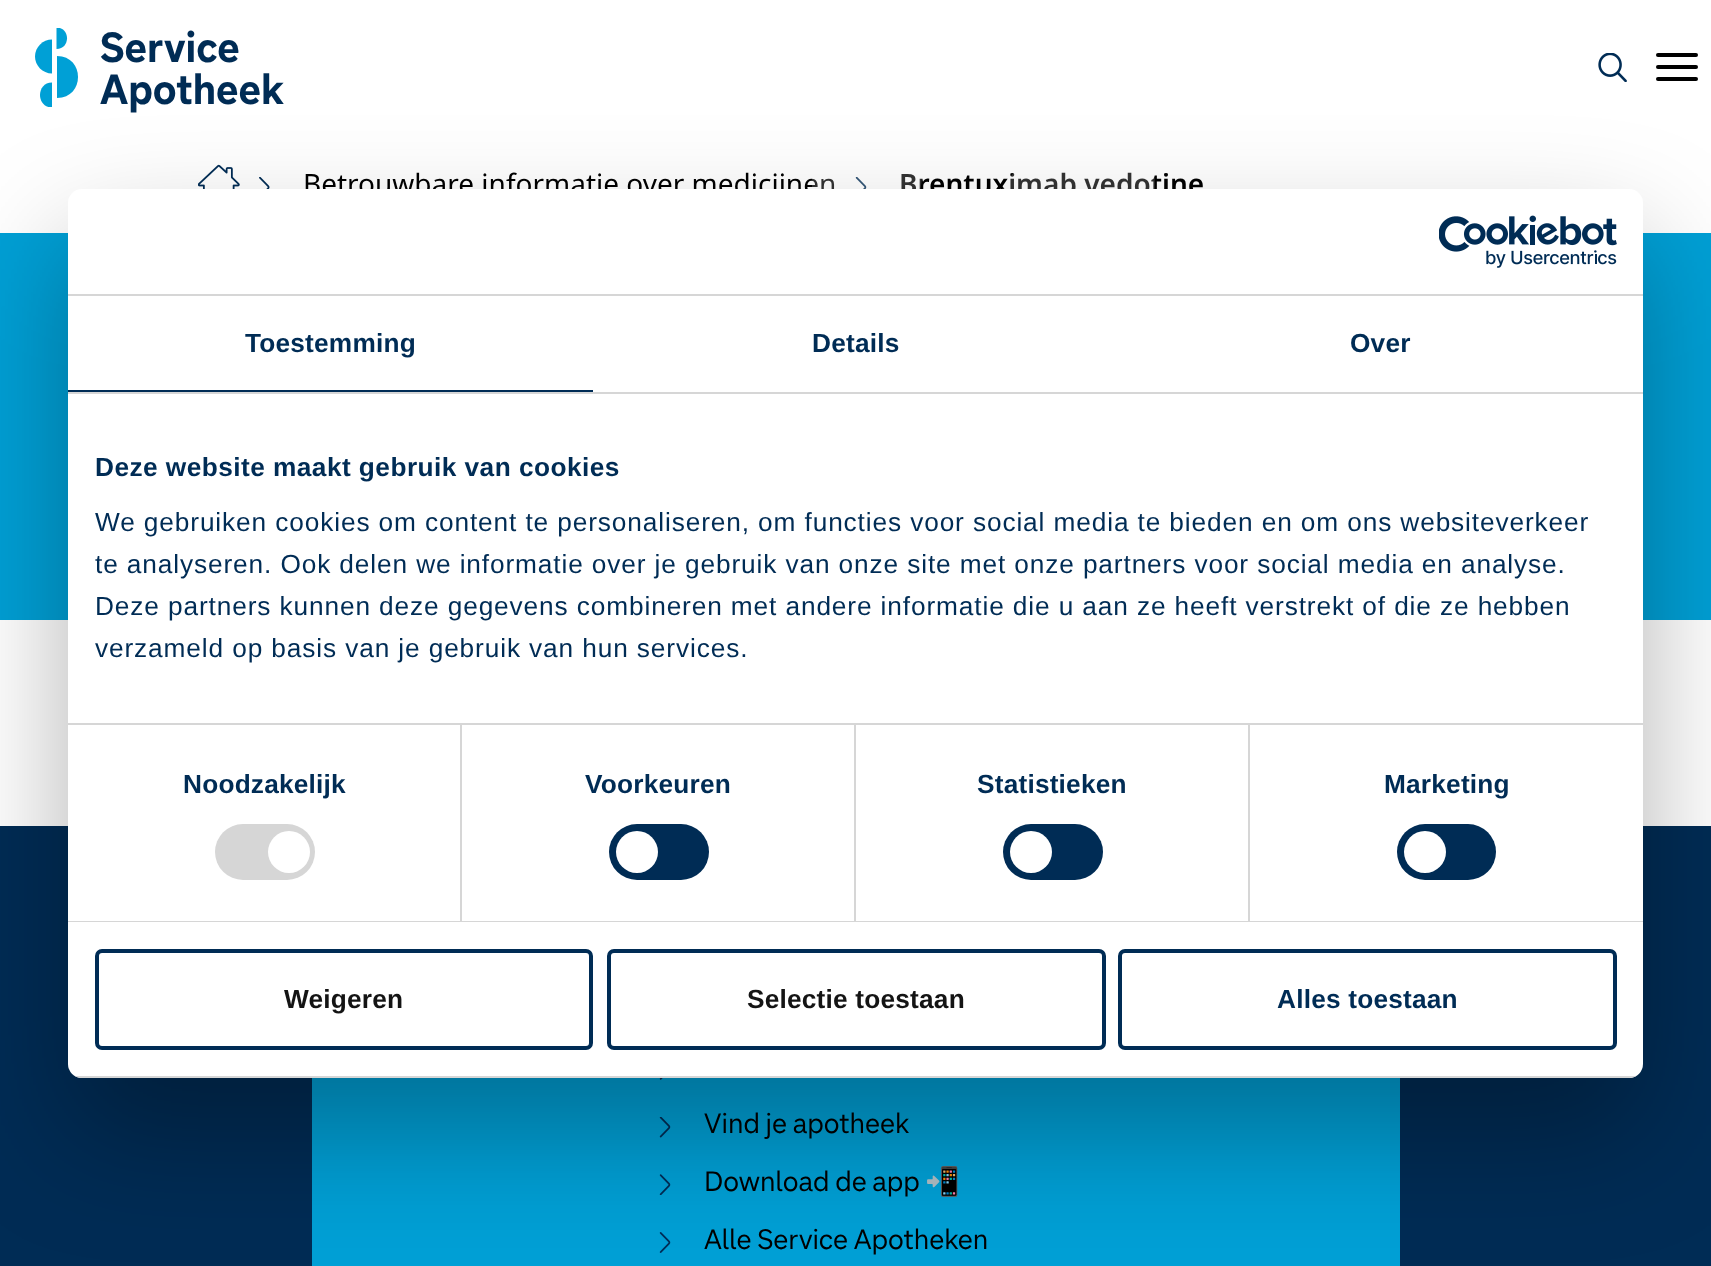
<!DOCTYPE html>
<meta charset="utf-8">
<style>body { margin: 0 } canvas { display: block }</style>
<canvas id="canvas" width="1711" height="1266"></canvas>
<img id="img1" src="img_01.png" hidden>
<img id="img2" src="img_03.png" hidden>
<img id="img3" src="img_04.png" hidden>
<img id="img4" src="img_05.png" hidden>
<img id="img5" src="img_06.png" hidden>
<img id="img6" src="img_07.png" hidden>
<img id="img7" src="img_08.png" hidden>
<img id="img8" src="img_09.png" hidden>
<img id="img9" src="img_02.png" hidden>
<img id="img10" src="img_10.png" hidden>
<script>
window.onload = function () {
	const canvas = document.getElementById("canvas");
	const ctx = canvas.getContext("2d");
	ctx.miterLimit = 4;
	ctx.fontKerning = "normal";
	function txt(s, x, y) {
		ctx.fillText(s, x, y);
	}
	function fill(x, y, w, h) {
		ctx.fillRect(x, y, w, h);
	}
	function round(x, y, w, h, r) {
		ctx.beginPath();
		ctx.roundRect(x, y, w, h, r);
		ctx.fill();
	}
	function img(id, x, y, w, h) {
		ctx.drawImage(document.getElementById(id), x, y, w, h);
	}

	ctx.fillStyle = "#FFFFFF";
	fill(0, 0, 1711, 1266);
	ctx.fillStyle = "#00A0D6";
	ctx.beginPath();
	ctx.moveTo(57, 56);
	ctx.bezierCurveTo(85, 56, 85, 98, 57, 98);
	ctx.closePath();
	ctx.fill();
	ctx.save();
	ctx.beginPath();
	ctx.rect(35, 28, 44, 79);
	ctx.clip();
	ctx.beginPath();
	ctx.moveTo(56.5, 27.5);
	ctx.bezierCurveTo(70.5, 27.5, 70.5, 49, 56.5, 49);
	ctx.closePath();
	ctx.fill();
	ctx.beginPath();
	ctx.moveTo(52, 107.5);
	ctx.bezierCurveTo(36, 107.5, 36, 82.5, 52, 82.5);
	ctx.closePath();
	ctx.fill();
	ctx.restore();
	ctx.beginPath();
	ctx.moveTo(52, 73.5);
	ctx.bezierCurveTo(42.5, 73.5, 35, 65.5, 35, 56.5);
	ctx.bezierCurveTo(35, 47, 43, 39.5, 52, 39.5);
	ctx.closePath();
	ctx.fill();
	img("img1", 1598, 53, 29, 29);
	ctx.fillStyle = "#000000";
	round(1656, 53, 42, 4, 2);
	round(1656, 65, 42, 4, 2);
	round(1656, 77, 42, 4, 2);
	ctx.fillStyle = "#00A0D6";
	fill(0, 233, 1711, 387);
	img("img2", 198, 164, 42, 25);
	img("img3", 259, 177, 11, 12);
	img("img4", 855, 177, 12, 12);
	ctx.fillStyle = "#002C55";
	fill(0, 826, 1711, 440);
	ctx.fillStyle = "#00A0D6";
	fill(312, 1078, 1088, 188);
	img("img5", 659, 1078, 4, 2);
	img("img6", 659, 1117, 12, 21);
	img("img7", 659, 1174, 12, 21);
	img("img8", 659, 1232, 12, 21);
	ctx.font = "bold 42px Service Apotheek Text";
	ctx.fillStyle = "#002C55";
	txt("Service", 100, 62);
	txt("Apotheek", 100, 104);
	ctx.font = "28px Noto Sans";
	ctx.fillStyle = "#000000";
	txt("Betrouwbare informatie over medicijnen", 303, 194);
	ctx.font = "600 28px Noto Sans";
	txt("Brentuximab vedotine", 899, 194);
	img("img9", 812, 172, 343, 17);
	ctx.font = "28px Service Apotheek Text";
	txt("Vind je apotheek", 704, 1133);
	txt("Download de app", 704, 1191);
	ctx.font = "28px Noto Color Emoji";
	txt("📲", 925, 1191);
	ctx.font = "28px Service Apotheek Text";
	txt("Alle Service Apotheken", 704, 1249);
	ctx.fillStyle = "rgba(0, 0, 0, 0.3)";
	ctx.filter = "blur(59.5px)";
	ctx.beginPath();
	ctx.roundRect(68, 245, 1575, 889, 14);
	ctx.fill();
	ctx.filter = "none";
	ctx.fillStyle = "#FFFFFF";
	round(68, 189, 1575, 889, 14);
	ctx.fillStyle = "#D6D6D6";
	fill(68, 294, 1575, 2);
	img("img10", 1439, 215, 178, 53);
	fill(68, 392, 1575, 2);
	ctx.fillStyle = "#002C55";
	fill(68, 390, 525, 2);
	ctx.letterSpacing = "0.2px";
	ctx.font = "bold 26.25px Liberation Sans";
	txt("Toestemming", 245, 352);
	txt("Details", 812, 352);
	txt("Over", 1350, 352);
	ctx.fillStyle = "#D6D6D6";
	fill(68, 723, 1575, 2);
	ctx.letterSpacing = "0.45px";
	ctx.fillStyle = "#002C55";
	txt("Deze website maakt gebruik van cookies", 95, 476);
	ctx.letterSpacing = "0.88px";
	ctx.font = "26.25px Liberation Sans";
	txt("We gebruiken cookies om content te personaliseren, om functies voor social media te bieden en om ons websiteverkeer", 95, 531);
	txt("te analyseren. Ook delen we informatie over je gebruik van onze site met onze partners voor social media en analyse.", 95, 573);
	txt("Deze partners kunnen deze gegevens combineren met andere informatie die u aan ze heeft verstrekt of die ze hebben", 95, 615);
	txt("verzameld op basis van je gebruik van hun services.", 95, 657);
	ctx.fillStyle = "#D6D6D6";
	fill(68, 921, 1575, 1);
	fill(460, 725, 2, 196);
	ctx.letterSpacing = "0.2px";
	ctx.font = "bold 26.25px Liberation Sans";
	ctx.fillStyle = "#002C55";
	txt("Noodzakelijk", 183, 793);
	ctx.fillStyle = "#D6D6D6";
	round(215, 824, 100, 56, 28);
	ctx.fillStyle = "#FFFFFF";
	ctx.beginPath();
	ctx.arc(289, 852, 21, 0, Math.PI * 2);
	ctx.fill();
	ctx.fillStyle = "#D6D6D6";
	fill(854, 725, 2, 196);
	ctx.fillStyle = "#002C55";
	txt("Voorkeuren", 585, 793);
	round(609, 824, 100, 56, 28);
	ctx.fillStyle = "#FFFFFF";
	ctx.beginPath();
	ctx.arc(637, 852, 21, 0, Math.PI * 2);
	ctx.fill();
	ctx.fillStyle = "#D6D6D6";
	fill(1248, 725, 2, 196);
	ctx.fillStyle = "#002C55";
	txt("Statistieken", 977, 793);
	round(1003, 824, 100, 56, 28);
	ctx.fillStyle = "#FFFFFF";
	ctx.beginPath();
	ctx.arc(1031, 852, 21, 0, Math.PI * 2);
	ctx.fill();
	ctx.fillStyle = "#002C55";
	txt("Marketing", 1384, 793);
	round(1397, 824, 99, 56, 28);
	ctx.fillStyle = "#FFFFFF";
	ctx.beginPath();
	ctx.arc(1425, 852, 21, 0, Math.PI * 2);
	ctx.fill();
	ctx.save();
	ctx.beginPath();
	ctx.roundRect(68, 189, 1575, 889, 14);
	ctx.clip();
	ctx.fillStyle = "#D6D6D6";
	fill(68, 1076, 1575, 2);
	ctx.restore();
	ctx.beginPath();
	ctx.roundRect(97, 951, 494, 97, 5);
	ctx.strokeStyle = "#002C55";
	ctx.lineWidth = 4;
	ctx.stroke();
	ctx.fillStyle = "#141414";
	txt("Weigeren", 284, 1008);
	ctx.beginPath();
	ctx.roundRect(609, 951, 495, 97, 5);
	ctx.stroke();
	txt("Selectie toestaan", 747, 1008);
	ctx.beginPath();
	ctx.roundRect(1120, 951, 495, 97, 5);
	ctx.stroke();
	ctx.fillStyle = "#002C55";
	txt("Alles toestaan", 1277, 1008);
};
</script>
